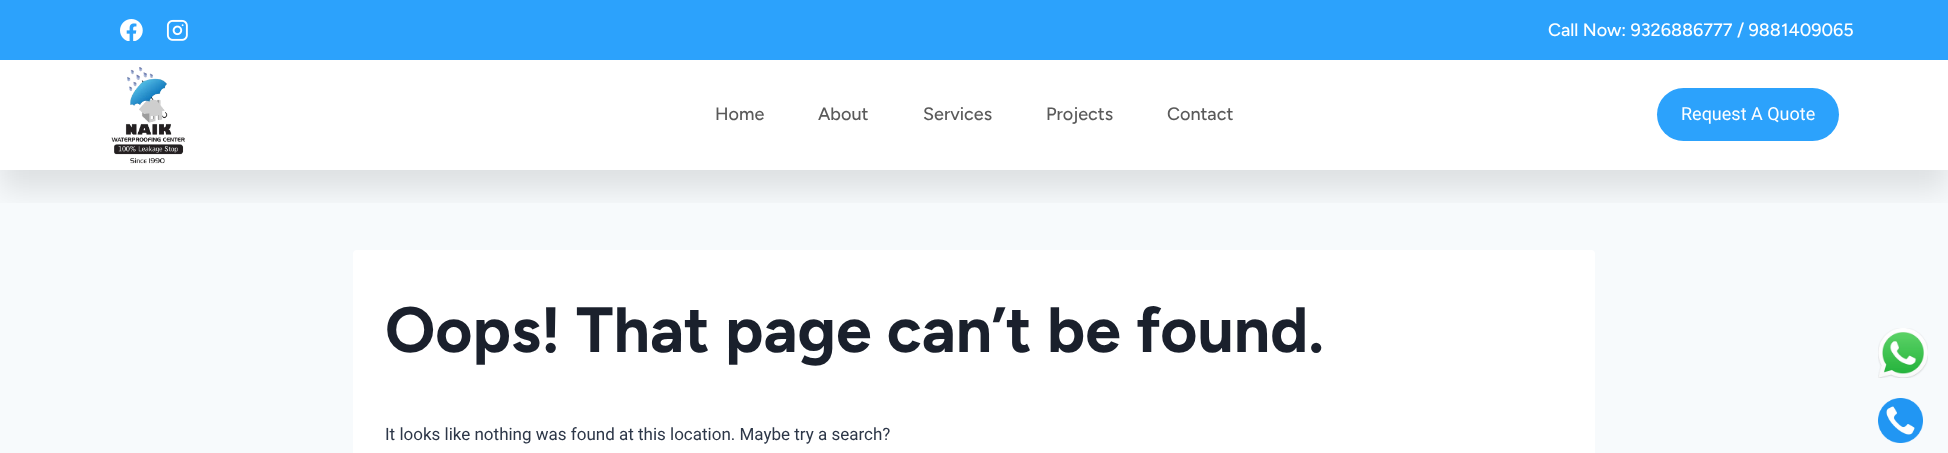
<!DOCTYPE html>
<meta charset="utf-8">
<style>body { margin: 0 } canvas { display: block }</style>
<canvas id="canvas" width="1948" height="453"></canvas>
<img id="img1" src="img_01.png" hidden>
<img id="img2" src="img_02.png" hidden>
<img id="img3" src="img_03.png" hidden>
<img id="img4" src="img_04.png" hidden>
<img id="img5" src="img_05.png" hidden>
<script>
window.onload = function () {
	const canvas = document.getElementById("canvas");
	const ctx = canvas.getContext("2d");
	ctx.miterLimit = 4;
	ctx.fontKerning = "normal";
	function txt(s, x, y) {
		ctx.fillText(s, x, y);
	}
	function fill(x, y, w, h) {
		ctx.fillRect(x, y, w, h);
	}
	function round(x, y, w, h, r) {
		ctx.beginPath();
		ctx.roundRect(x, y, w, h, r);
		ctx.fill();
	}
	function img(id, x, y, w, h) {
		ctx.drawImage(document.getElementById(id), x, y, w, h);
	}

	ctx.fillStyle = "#F7FAFC";
	fill(0, 0, 1948, 453);
	ctx.fillStyle = "#FFFFFF";
	fill(0, 60, 1948, 110);
	ctx.save();
	ctx.beginPath();
	ctx.rect(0, 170, 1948, 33);
	ctx.clip();
	ctx.fillStyle = "rgba(0, 0, 0, 0.1)";
	ctx.filter = "blur(15px)";
	ctx.beginPath();
	ctx.rect(0, 20, 1948, 170);
	ctx.fill();
	ctx.filter = "none";
	ctx.restore();
	ctx.fillStyle = "#2CA2FC";
	fill(0, 0, 1948, 60);
	img("img1", 120, 19, 23, 22);
	img("img2", 166, 19, 22, 22);
	img("img3", 111, 67, 74, 97);
	round(1657, 88, 182, 53, 26.5);
	ctx.fillStyle = "#FFFFFF";
	round(353, 250, 1242, 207, 4);
	img("img4", 1878, 328, 50, 50);
	img("img5", 1878, 398, 45, 45);
	ctx.font = "500 18px Figtree";
	txt("Call Now: 9326886777 / 9881409065", 1548, 36);
	ctx.fillStyle = "#5A5A5A";
	txt("Home", 715, 120);
	txt("About", 818, 120);
	txt("Services", 923, 120);
	txt("Projects", 1046, 120);
	txt("Contact", 1167, 120);
	ctx.font = "18px Roboto";
	ctx.fillStyle = "#FFFFFF";
	txt("Request A Quote", 1681, 120);
	ctx.font = "bold 64px Figtree";
	ctx.fillStyle = "#1A202C";
	txt("Oops! That page can’t be found.", 385, 352);
	ctx.font = "17px Roboto";
	ctx.fillStyle = "#2D3748";
	txt("It looks like nothing was found at this location. Maybe try a search?", 385, 440);
};
</script>
